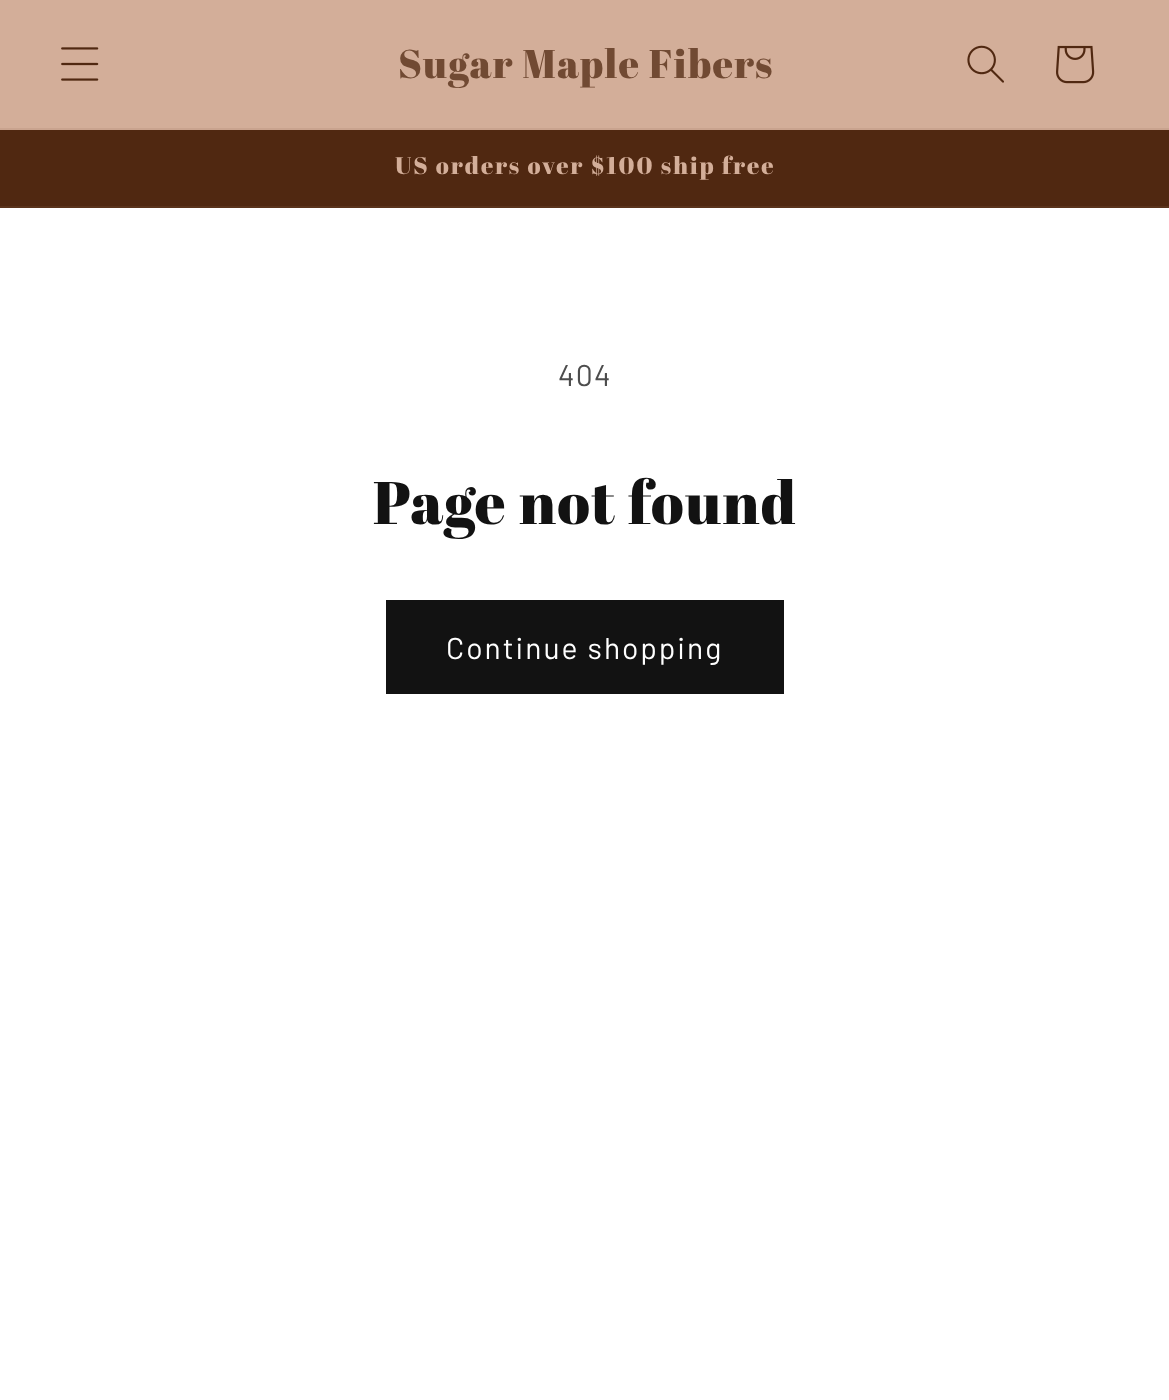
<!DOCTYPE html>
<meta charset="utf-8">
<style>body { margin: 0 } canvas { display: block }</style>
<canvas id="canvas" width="1169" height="1400"></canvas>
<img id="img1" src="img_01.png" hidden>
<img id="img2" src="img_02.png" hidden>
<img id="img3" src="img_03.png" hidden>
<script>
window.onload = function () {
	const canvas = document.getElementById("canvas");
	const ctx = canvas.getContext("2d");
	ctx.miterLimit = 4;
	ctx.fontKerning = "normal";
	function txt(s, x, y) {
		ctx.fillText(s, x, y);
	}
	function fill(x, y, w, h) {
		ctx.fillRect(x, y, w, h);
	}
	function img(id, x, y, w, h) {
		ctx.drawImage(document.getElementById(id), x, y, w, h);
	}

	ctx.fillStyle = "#FFFFFF";
	fill(0, 0, 1169, 1400);
	ctx.fillStyle = "#D3AE99";
	fill(0, 0, 1169, 128);
	ctx.fillStyle = "#C9A38E";
	fill(0, 128, 1169, 2);
	img("img1", 61, 47, 38, 34);
	img("img2", 967, 45, 37, 38);
	img("img3", 1056, 45, 39, 39);
	ctx.fillStyle = "#502811";
	fill(0, 130, 1169, 76);
	ctx.fillStyle = "#5A331C";
	fill(0, 206, 1169, 2);
	ctx.fillStyle = "#121212";
	fill(386, 600, 398, 94);
	ctx.letterSpacing = "1.25px";
	ctx.font = "40px Abril Fatface";
	ctx.fillStyle = "#714A33";
	txt("Sugar Maple Fibers", 398, 78);
	ctx.letterSpacing = "2px";
	ctx.font = "24px Abril Fatface";
	ctx.fillStyle = "#D3AE99";
	txt("US orders over $100 ship free", 395, 174);
	ctx.letterSpacing = "1.25px";
	ctx.font = "30px Barlow";
	ctx.fillStyle = "#4D4D4D";
	txt("404", 558, 386);
	ctx.font = "60px Abril Fatface";
	ctx.fillStyle = "#121212";
	txt("Page not found", 373, 524);
	ctx.letterSpacing = "2px";
	ctx.font = "30px Barlow";
	ctx.fillStyle = "#FFFFFF";
	txt("Continue shopping", 446, 659);
};
</script>
